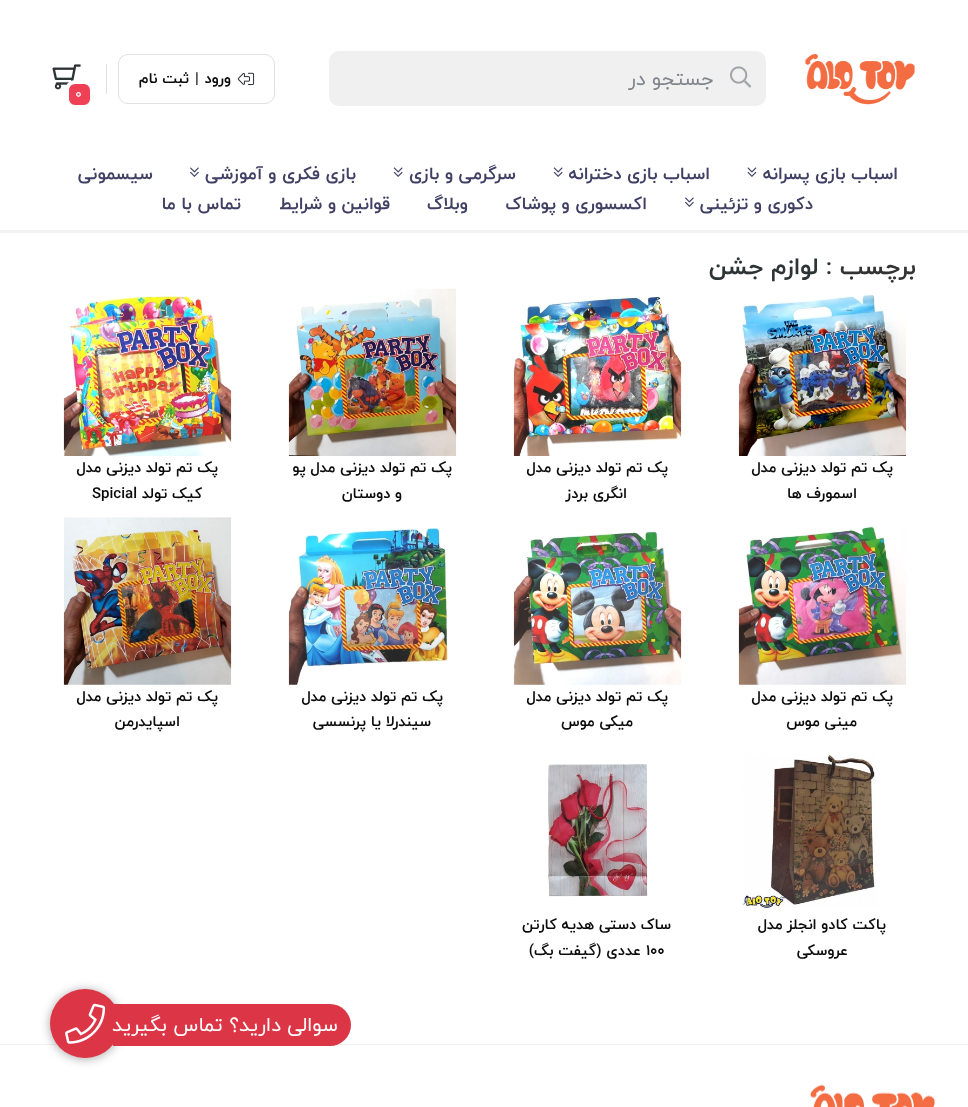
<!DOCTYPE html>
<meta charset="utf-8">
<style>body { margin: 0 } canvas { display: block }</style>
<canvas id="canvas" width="968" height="1107"></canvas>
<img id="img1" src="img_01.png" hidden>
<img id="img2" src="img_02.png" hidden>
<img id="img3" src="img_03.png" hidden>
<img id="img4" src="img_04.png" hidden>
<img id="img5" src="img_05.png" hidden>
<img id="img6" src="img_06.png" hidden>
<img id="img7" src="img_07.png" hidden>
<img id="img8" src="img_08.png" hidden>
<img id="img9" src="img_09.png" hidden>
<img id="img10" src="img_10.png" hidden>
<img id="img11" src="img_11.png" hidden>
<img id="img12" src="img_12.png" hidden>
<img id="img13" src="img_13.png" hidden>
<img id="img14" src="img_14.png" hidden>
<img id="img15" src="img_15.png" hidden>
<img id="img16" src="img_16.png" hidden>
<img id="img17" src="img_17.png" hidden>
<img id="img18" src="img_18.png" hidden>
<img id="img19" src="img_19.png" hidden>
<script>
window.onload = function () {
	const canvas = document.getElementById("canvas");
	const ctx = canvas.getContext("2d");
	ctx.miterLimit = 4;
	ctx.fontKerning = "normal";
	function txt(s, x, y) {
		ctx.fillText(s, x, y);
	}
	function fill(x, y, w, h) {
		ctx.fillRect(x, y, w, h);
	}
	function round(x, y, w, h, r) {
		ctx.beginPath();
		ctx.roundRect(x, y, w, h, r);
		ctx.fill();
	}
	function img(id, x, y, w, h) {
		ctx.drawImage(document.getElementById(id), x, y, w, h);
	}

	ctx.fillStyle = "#FFFFFF";
	fill(0, 0, 968, 1107);
	ctx.fillStyle = "rgba(0, 0, 0, 0.05)";
	ctx.beginPath();
	ctx.moveTo(0, 230);
	ctx.lineTo(0, 233);
	ctx.lineTo(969, 233);
	ctx.lineTo(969, 3);
	ctx.lineTo(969, 230);
	ctx.closePath();
	ctx.fill();
	img("img1", 805, 53, 110, 52);
	ctx.fillStyle = "#F0F0F1";
	round(329, 51, 437, 55, 10);
	img("img2", 730, 66, 22, 22);
	ctx.beginPath();
	ctx.roundRect(118.5, 54.5, 156, 49, 9.5);
	ctx.strokeStyle = "#E0E0E2";
	ctx.stroke();
	img("img3", 237, 72, 18, 13);
	ctx.fillStyle = "#E0E0E2";
	fill(106, 64, 1, 30);
	img("img4", 52, 64, 29, 26);
	ctx.fillStyle = "#EF4056";
	ctx.beginPath();
	ctx.roundRect(67, 82, 25, 25, 8);
	ctx.fill();
	ctx.strokeStyle = "#FFFFFF";
	ctx.lineWidth = 4;
	ctx.stroke();
	img("img5", 747, 167, 10, 10);
	img("img6", 553, 167, 10, 10);
	img("img6", 393, 167, 10, 10);
	img("img7", 190, 167, 9, 10);
	img("img7", 685, 197, 9, 10);
	img("img8", 738, 294, 169, 162);
	img("img9", 513, 296, 169, 160);
	img("img10", 288, 288, 169, 168);
	img("img11", 63, 295, 169, 161);
	img("img12", 738, 526, 168, 159);
	img("img13", 513, 531, 169, 154);
	img("img14", 288, 527, 160, 158);
	img("img15", 63, 517, 169, 168);
	img("img16", 742, 754, 135, 155);
	img("img17", 548, 764, 100, 133);
	ctx.fillStyle = "#F0F0F1";
	fill(0, 1044, 968, 1);
	img("img18", 810, 1084, 125, 23);
	ctx.fillStyle = "rgba(0, 0, 0, 0.15)";
	ctx.filter = "blur(6px)";
	ctx.beginPath();
	ctx.roundRect(50, 990, 70, 69, 34.5);
	ctx.fill();
	ctx.filter = "none";
	ctx.fillStyle = "rgba(0, 0, 0, 0.2)";
	ctx.filter = "blur(4px)";
	ctx.beginPath();
	ctx.roundRect(50, 990, 70, 69, 34.5);
	ctx.fill();
	ctx.filter = "none";
	ctx.fillStyle = "#DC3545";
	round(50, 989, 70, 69, 34.5);
	ctx.beginPath();
	ctx.roundRect(113, 1004, 238, 42, [0, 21, 21, 0]);
	ctx.fill();
	img("img19", 65, 1003, 41, 41);
	ctx.direction = "rtl";
	ctx.font = "20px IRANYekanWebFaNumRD";
	ctx.fillStyle = "#81858B";
	txt("جستجو در", 714, 85);
	ctx.font = "bold 15px IRANYekanWebFaNumRD";
	ctx.fillStyle = "#0C0C0C";
	txt("ورود", 231, 83);
	ctx.direction = "ltr";
	txt("|", 195, 83);
	ctx.direction = "rtl";
	txt("ثبت نام", 189, 83);
	ctx.direction = "ltr";
	ctx.font = "14px IRANYekanWebFaNumRD";
	ctx.fillStyle = "#FFFFFF";
	txt("0", 75, 98);
	ctx.direction = "rtl";
	ctx.font = "bold 17.5px IRANYekanWebFaNumRD";
	ctx.fillStyle = "#3F4064";
	txt("اسباب بازی پسرانه", 898, 179);
	txt("اسباب بازی دخترانه", 710, 179);
	txt("سرگرمی و بازی", 516, 179);
	txt("بازی فکری و آموزشی", 356, 179);
	txt("سیسمونی", 153, 179);
	txt("دکوری و تزئینی", 813, 209);
	txt("اکسسوری و پوشاک", 647, 209);
	txt("وبلاگ", 468, 209);
	txt("قوانین و شرایط", 390, 209);
	txt("تماس با ما", 241, 209);
	ctx.font = "bold 24px IRANYekanWebFaNumRD";
	ctx.fillStyle = "#333333";
	txt("برچسب", 916, 274);
	ctx.fillStyle = "#2D3436";
	txt(": لوازم جشن", 832, 274);
	ctx.font = "bold 15px IRANYekanWebFaNumRD";
	ctx.fillStyle = "#0C0C0C";
	txt("پک تم تولد دیزنی مدل", 893, 472);
	txt("اسمورف ها", 857, 498);
	txt("پک تم تولد دیزنی مدل", 668, 472);
	txt("انگری بردز", 627, 498);
	txt("پک تم تولد دیزنی مدل پو", 452, 472);
	txt("و دوستان", 402, 498);
	txt("پک تم تولد دیزنی مدل", 218, 472);
	txt("کیک تولد", 202, 498);
	ctx.direction = "ltr";
	txt("Spicial", 92, 498);
	ctx.direction = "rtl";
	txt("پک تم تولد دیزنی مدل", 893, 701);
	txt("مینی موس", 857, 726);
	txt("پک تم تولد دیزنی مدل", 668, 701);
	txt("میکی موس", 633, 726);
	txt("پک تم تولد دیزنی مدل", 443, 701);
	txt("سیندرلا یا پرنسسی", 431, 726);
	txt("پک تم تولد دیزنی مدل", 218, 701);
	txt("اسپایدرمن", 180, 726);
	txt("پاکت کادو انجلز مدل", 886, 929);
	txt("عروسکی", 848, 955);
	txt("ساک دستی هدیه کارتن", 671, 929);
	ctx.direction = "ltr";
	txt("۱۰۰", 646, 955);
	ctx.direction = "rtl";
	txt("عددی (گیفت بگ)", 641, 955);
	ctx.font = "20px IRANYekanWebFaNumRD";
	ctx.fillStyle = "#FFFFFF";
	txt("سوالی دارید؟ تماس بگیرید", 338, 1031);
};
</script>
